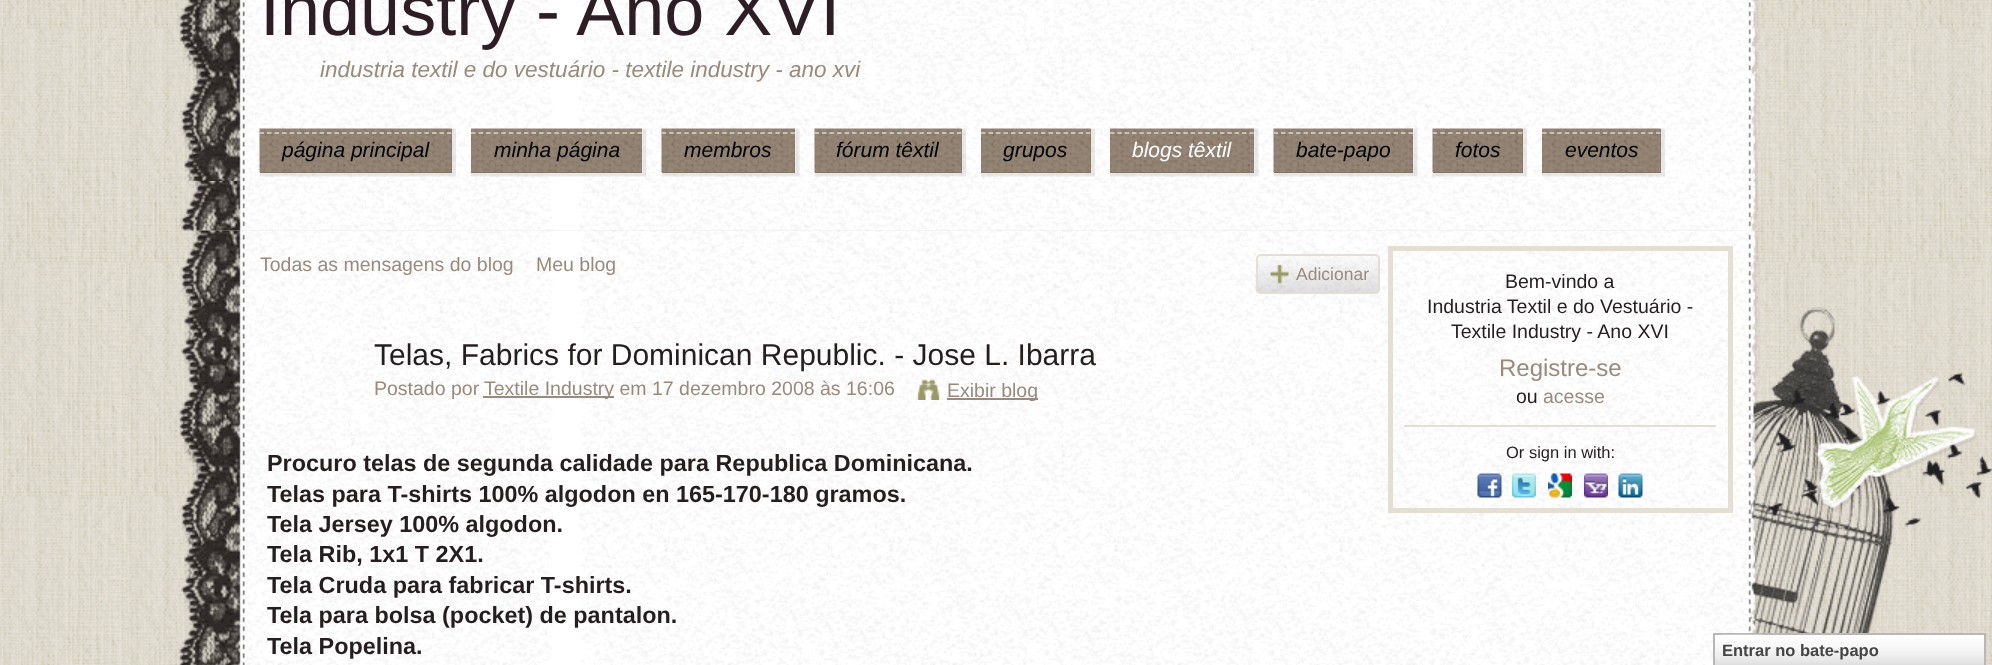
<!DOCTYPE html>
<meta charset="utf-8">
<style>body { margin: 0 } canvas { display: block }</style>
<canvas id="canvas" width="1992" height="665"></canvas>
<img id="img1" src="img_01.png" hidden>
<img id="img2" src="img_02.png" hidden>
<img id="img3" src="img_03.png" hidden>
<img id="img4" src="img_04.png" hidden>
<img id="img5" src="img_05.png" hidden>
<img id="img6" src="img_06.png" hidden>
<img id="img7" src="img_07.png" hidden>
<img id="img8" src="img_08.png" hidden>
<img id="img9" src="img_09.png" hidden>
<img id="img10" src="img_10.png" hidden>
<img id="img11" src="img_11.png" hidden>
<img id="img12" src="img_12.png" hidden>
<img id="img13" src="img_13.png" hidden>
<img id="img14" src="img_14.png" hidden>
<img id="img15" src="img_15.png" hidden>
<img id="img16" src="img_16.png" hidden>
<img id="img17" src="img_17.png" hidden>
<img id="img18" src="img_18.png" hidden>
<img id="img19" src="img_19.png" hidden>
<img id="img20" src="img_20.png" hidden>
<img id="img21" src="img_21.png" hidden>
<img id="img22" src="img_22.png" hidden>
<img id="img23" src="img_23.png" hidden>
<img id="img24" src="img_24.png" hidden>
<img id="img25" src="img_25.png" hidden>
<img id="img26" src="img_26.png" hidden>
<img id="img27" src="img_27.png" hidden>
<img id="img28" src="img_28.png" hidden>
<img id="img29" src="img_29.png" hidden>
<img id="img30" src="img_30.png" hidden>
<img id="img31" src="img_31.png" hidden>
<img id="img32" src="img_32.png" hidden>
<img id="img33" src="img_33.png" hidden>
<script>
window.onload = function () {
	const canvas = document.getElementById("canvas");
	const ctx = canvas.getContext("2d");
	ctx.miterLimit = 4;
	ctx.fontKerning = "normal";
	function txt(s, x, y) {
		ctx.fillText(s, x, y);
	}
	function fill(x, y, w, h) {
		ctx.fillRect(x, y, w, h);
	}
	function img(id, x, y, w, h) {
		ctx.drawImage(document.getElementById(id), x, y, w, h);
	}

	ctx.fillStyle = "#FFFFFF";
	fill(0, 0, 1992, 665);
	img("img1", 0, 0, 1992, 665);
	img("img2", 178, 0, 1580, 181);
	img("img3", 259, 128, 197, 49);
	ctx.fillStyle = "#857664";
	fill(260, 129, 192, 44);
	img("img4", 259, 128, 193, 44);
	ctx.beginPath();
	ctx.moveTo(259.5, 133);
	ctx.lineTo(451.5, 133);
	ctx.strokeStyle = "#DDD8C9";
	ctx.lineWidth = 1.5;
	ctx.setLineDash([4.5, 3]);
	ctx.stroke();
	img("img5", 471, 128, 176, 49);
	fill(471, 172, 171, 1);
	img("img6", 471, 128, 171, 44);
	ctx.beginPath();
	ctx.moveTo(471, 133);
	ctx.lineTo(642, 133);
	ctx.setLineDash([4.5, 3.07]);
	ctx.stroke();
	img("img7", 661, 128, 139, 49);
	fill(662, 172, 133, 1);
	img("img8", 661, 128, 134, 44);
	ctx.beginPath();
	ctx.moveTo(661.5, 133);
	ctx.lineTo(795, 133);
	ctx.setLineDash([4.5, 3.09]);
	ctx.stroke();
	img("img9", 814, 128, 152, 49);
	fill(815, 129, 147, 44);
	img("img10", 814, 128, 148, 44);
	ctx.beginPath();
	ctx.moveTo(814.5, 133);
	ctx.lineTo(961.5, 133);
	ctx.setLineDash([4.5, 3]);
	ctx.stroke();
	img("img11", 981, 128, 114, 49);
	fill(981, 129, 110, 44);
	img("img12", 981, 128, 110, 44);
	ctx.beginPath();
	ctx.moveTo(981, 133);
	ctx.lineTo(1090.5, 133);
	ctx.stroke();
	img("img13", 1110, 128, 149, 49);
	fill(1110, 172, 144, 1);
	img("img14", 1110, 128, 144, 44);
	ctx.beginPath();
	ctx.moveTo(1110, 133);
	ctx.lineTo(1254, 133);
	ctx.setLineDash([4.5, 2.83]);
	ctx.stroke();
	img("img15", 1273, 128, 145, 49);
	fill(1274, 172, 139, 1);
	img("img16", 1273, 128, 140, 44);
	ctx.beginPath();
	ctx.moveTo(1273.5, 133);
	ctx.lineTo(1413, 133);
	ctx.setLineDash([4.5, 3]);
	ctx.stroke();
	img("img17", 1432, 128, 95, 49);
	fill(1433, 129, 90, 44);
	img("img18", 1432, 128, 91, 44);
	ctx.beginPath();
	ctx.moveTo(1432.5, 133);
	ctx.lineTo(1522.5, 133);
	ctx.setLineDash([4.5, 3.27]);
	ctx.stroke();
	img("img19", 1542, 128, 123, 49);
	fill(1542, 129, 119, 44);
	img("img20", 1542, 128, 119, 44);
	ctx.beginPath();
	ctx.moveTo(1542, 133);
	ctx.lineTo(1660.5, 133);
	ctx.setLineDash([4.5, 3.1]);
	ctx.stroke();
	img("img21", 181, 181, 1577, 50);
	img("img22", 1748, 307, 244, 326);
	img("img23", 178, 230, 1580, 435);
	img("img24", 1255, 256, 125, 38);
	ctx.beginPath();
	ctx.roundRect(1257, 255, 122, 38, 4);
	ctx.strokeStyle = "#E4DED3";
	ctx.lineWidth = 2;
	ctx.setLineDash([]);
	ctx.stroke();
	img("img25", 1270, 264, 19, 20);
	ctx.fillStyle = "#998A7C";
	fill(483, 396, 131, 2);
	img("img26", 917, 378, 23, 22);
	fill(947, 398, 91, 2);
	ctx.lineWidth = 5;
	ctx.strokeRect(1390.5, 248.5, 340, 262);
	ctx.fillStyle = "#E4DED3";
	fill(1404, 425, 312, 2);
	img("img27", 1477, 473, 25, 25);
	img("img28", 1512, 473, 24, 25);
	img("img29", 1548, 473, 24, 25);
	img("img30", 1584, 473, 24, 25);
	img("img31", 1618, 473, 25, 25);
	img("img32", 1715, 635, 269, 30);
	ctx.strokeStyle = "#B7B7B7";
	ctx.lineWidth = 2;
	ctx.strokeRect(1714, 634, 271, 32);
	img("img33", 1722, 634, 41, 1);
	ctx.font = "72px Liberation Sans";
	ctx.fillStyle = "#2C1E24";
	txt("Industry - Ano XVI", 260, 35);
	ctx.font = "italic 22.5px Liberation Sans";
	ctx.fillStyle = "#9A8A7C";
	txt("industria textil e do vestuário - textile industry - ano xvi", 320, 77);
	ctx.font = "italic 21px Liberation Sans";
	ctx.fillStyle = "#000000";
	txt("página principal", 282, 157);
	txt("minha página", 494, 157);
	txt("membros", 684, 157);
	txt("fórum têxtil", 836, 157);
	txt("grupos", 1003, 157);
	ctx.fillStyle = "#FFFFFF";
	txt("blogs têxtil", 1132, 157);
	ctx.fillStyle = "#000000";
	txt("bate-papo", 1296, 157);
	txt("fotos", 1455, 157);
	txt("eventos", 1565, 157);
	ctx.font = "19.5px Liberation Sans";
	ctx.fillStyle = "#9A8A7C";
	txt("Todas as mensagens do blog", 260, 271);
	txt("Meu blog", 536, 271);
	ctx.font = "17.5px Liberation Sans";
	txt("Adicionar", 1296, 280);
	ctx.font = "30px Liberation Sans";
	ctx.fillStyle = "#241E1E";
	txt("Telas, Fabrics for Dominican Republic. - Jose L. Ibarra", 374, 365);
	ctx.font = "19.5px Liberation Sans";
	ctx.fillStyle = "#9A8A7C";
	txt("Postado por", 374, 395);
	txt("Textile Industry em 17 dezembro 2008 às 16:06", 484, 395);
	txt("Exibir blog", 947, 397);
	ctx.font = "bold 23.4px Liberation Sans";
	ctx.fillStyle = "#241E1E";
	txt("Procuro telas de segunda calidade para Republica Dominicana.", 267, 471);
	txt("Telas para T-shirts 100% algodon en 165-170-180 gramos.", 267, 502);
	txt("Tela Jersey 100% algodon.", 267, 532);
	txt("Tela Rib, 1x1 T 2X1.", 267, 562);
	txt("Tela Cruda para fabricar T-shirts.", 267, 593);
	txt("Tela para bolsa (pocket) de pantalon.", 267, 623);
	txt("Tela Popelina.", 267, 654);
	ctx.font = "19.5px Liberation Sans";
	txt("Bem-vindo a", 1505, 288);
	txt("Industria Textil e do Vestuário -", 1427, 313);
	txt("Textile Industry - Ano XVI", 1451, 338);
	ctx.font = "24px Liberation Sans";
	ctx.fillStyle = "#9A8A7C";
	txt("Registre-se", 1499, 376);
	ctx.font = "19.5px Liberation Sans";
	ctx.fillStyle = "#241E1E";
	txt("ou", 1516, 403);
	ctx.fillStyle = "#9A8A7C";
	txt("acesse", 1543, 403);
	ctx.font = "16.5px Liberation Sans";
	ctx.fillStyle = "#241E1E";
	txt("Or sign in with:", 1506, 458);
	ctx.font = "bold 16.5px Liberation Sans";
	ctx.fillStyle = "#454545";
	txt("Entrar no bate-papo", 1722, 656);
};
</script>
